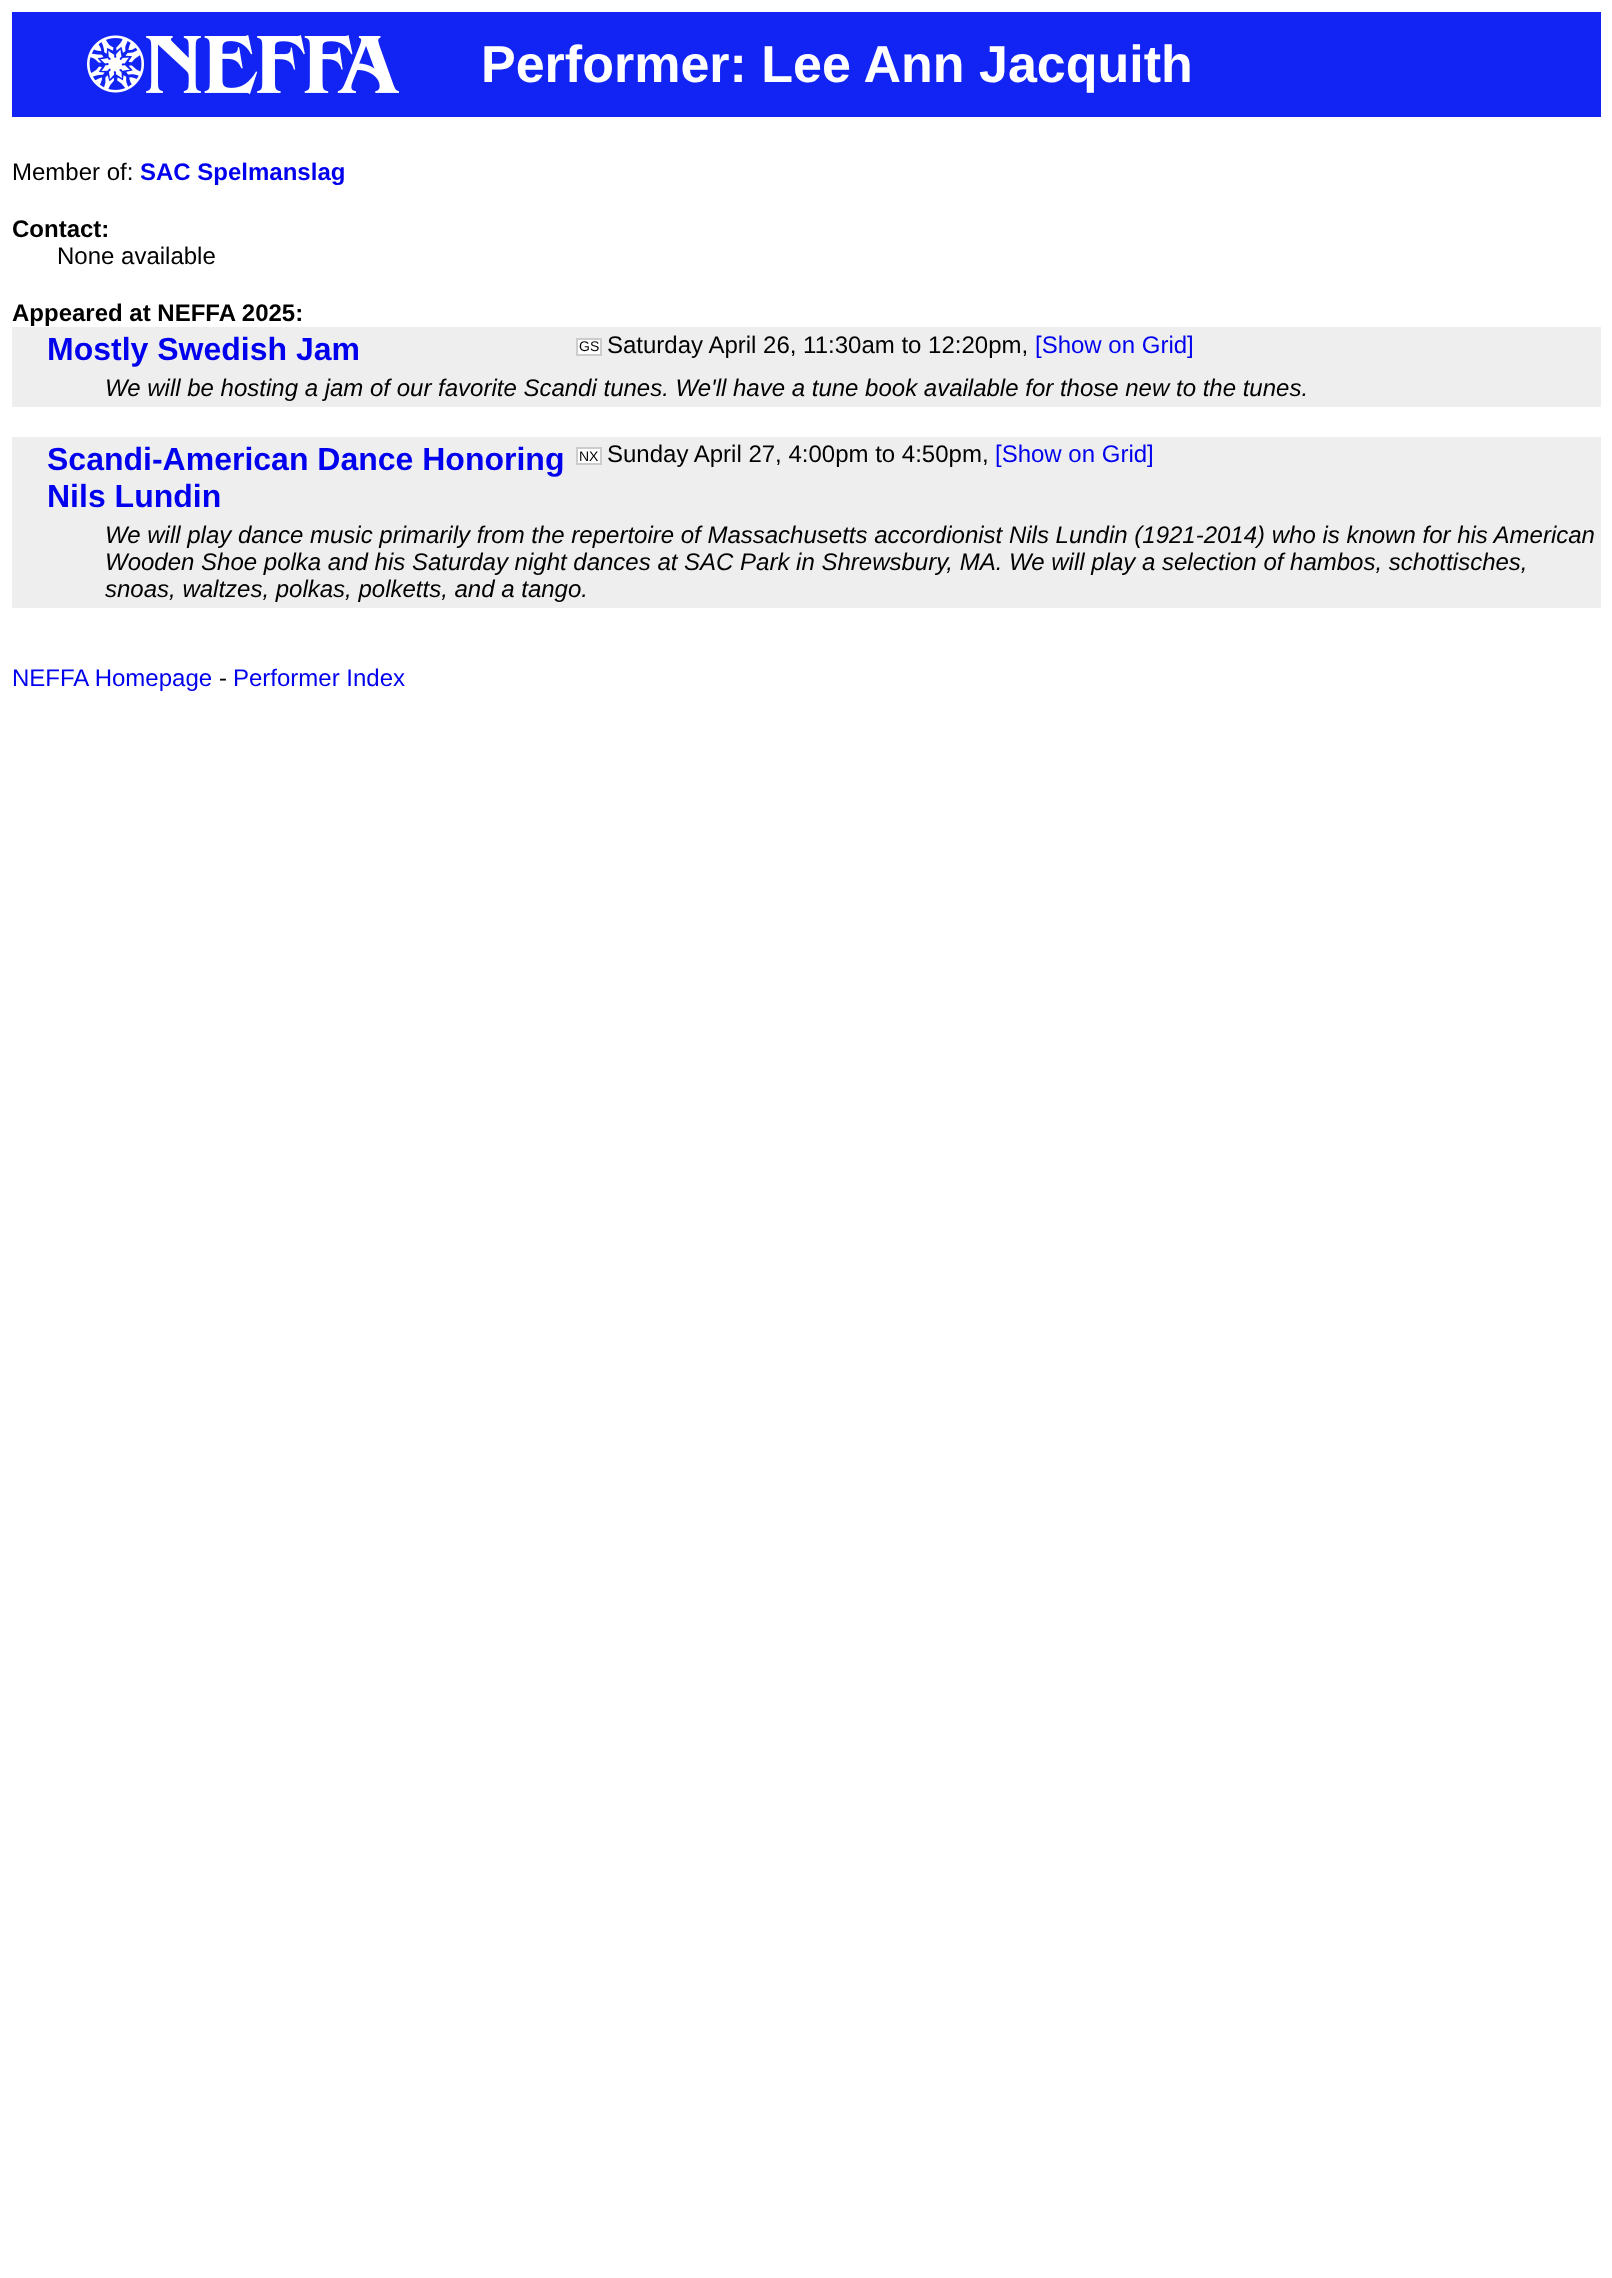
<!DOCTYPE html>
<meta charset="utf-8">
<style>body { margin: 0 } canvas { display: block }</style>
<canvas id="canvas" width="1612" height="2278"></canvas>
<img id="img1" src="img_01.png" hidden>
<script>
window.onload = function () {
	const canvas = document.getElementById("canvas");
	const ctx = canvas.getContext("2d");
	ctx.miterLimit = 4;
	ctx.fontKerning = "normal";
	function txt(s, x, y) {
		ctx.fillText(s, x, y);
	}
	function fill(x, y, w, h) {
		ctx.fillRect(x, y, w, h);
	}
	function img(id, x, y, w, h) {
		ctx.drawImage(document.getElementById(id), x, y, w, h);
	}

	ctx.fillStyle = "#FFFFFF";
	fill(0, 0, 1612, 2278);
	ctx.fillStyle = "#1224F4";
	fill(12, 12, 1589, 105);
	img("img1", 87, 35, 312, 60);
	ctx.fillStyle = "#EEEEEE";
	fill(12, 327, 1589, 80);
	ctx.fillStyle = "#FFFFFF";
	fill(578, 340, 22, 14);
	ctx.strokeStyle = "#CCCCCC";
	ctx.lineWidth = 2;
	ctx.strokeRect(577, 339, 24, 16);
	ctx.fillStyle = "#EEEEEE";
	fill(12, 437, 1589, 171);
	ctx.fillStyle = "#FFFFFF";
	fill(578, 449, 22, 14);
	ctx.strokeRect(577, 448, 24, 16);
	ctx.font = "bold 52px Liberation Sans";
	txt("Performer: Lee Ann Jacquith", 481, 82);
	ctx.font = "24px Liberation Sans";
	ctx.fillStyle = "#000000";
	txt("Member of:", 12, 180);
	ctx.font = "bold 24px Liberation Sans";
	ctx.fillStyle = "#0000EE";
	txt("SAC Spelmanslag", 140, 180);
	ctx.fillStyle = "#000000";
	txt("Contact:", 12, 237);
	ctx.font = "24px Liberation Sans";
	txt("None available", 57, 264);
	ctx.font = "bold 24px Liberation Sans";
	txt("Appeared at NEFFA 2025:", 12, 321);
	ctx.font = "bold 32px Liberation Sans";
	ctx.fillStyle = "#0000EE";
	txt("Mostly Swedish Jam", 47, 360);
	ctx.font = "14px Liberation Sans";
	ctx.fillStyle = "#000000";
	txt("GS", 579, 351);
	ctx.font = "24px Liberation Sans";
	txt("Saturday April 26, 11:30am to 12:20pm,", 607, 353);
	ctx.fillStyle = "#0000EE";
	txt("[Show on Grid]", 1035, 353);
	ctx.font = "italic 24px Liberation Sans";
	ctx.fillStyle = "#000000";
	txt("We will be hosting a jam of our favorite Scandi tunes. We'll have a tune book available for those new to the tunes.", 105, 396);
	ctx.font = "bold 32px Liberation Sans";
	ctx.fillStyle = "#0000EE";
	txt("Scandi-American Dance Honoring", 47, 470);
	txt("Nils Lundin", 47, 507);
	ctx.font = "14px Liberation Sans";
	ctx.fillStyle = "#000000";
	txt("NX", 579, 461);
	ctx.font = "24px Liberation Sans";
	txt("Sunday April 27, 4:00pm to 4:50pm,", 607, 462);
	ctx.fillStyle = "#0000EE";
	txt("[Show on Grid]", 995, 462);
	ctx.font = "italic 24px Liberation Sans";
	ctx.fillStyle = "#000000";
	txt("We will play dance music primarily from the repertoire of Massachusetts accordionist Nils Lundin (1921-2014) who is known for his American", 105, 543);
	txt("Wooden Shoe polka and his Saturday night dances at SAC Park in Shrewsbury, MA. We will play a selection of hambos, schottisches,", 105, 570);
	txt("snoas, waltzes, polkas, polketts, and a tango.", 105, 597);
	ctx.font = "24px Liberation Sans";
	ctx.fillStyle = "#0000EE";
	txt("NEFFA Homepage", 12, 686);
	ctx.fillStyle = "#000000";
	txt("-", 219, 686);
	ctx.fillStyle = "#0000EE";
	txt("Performer Index", 233, 686);
};
</script>
